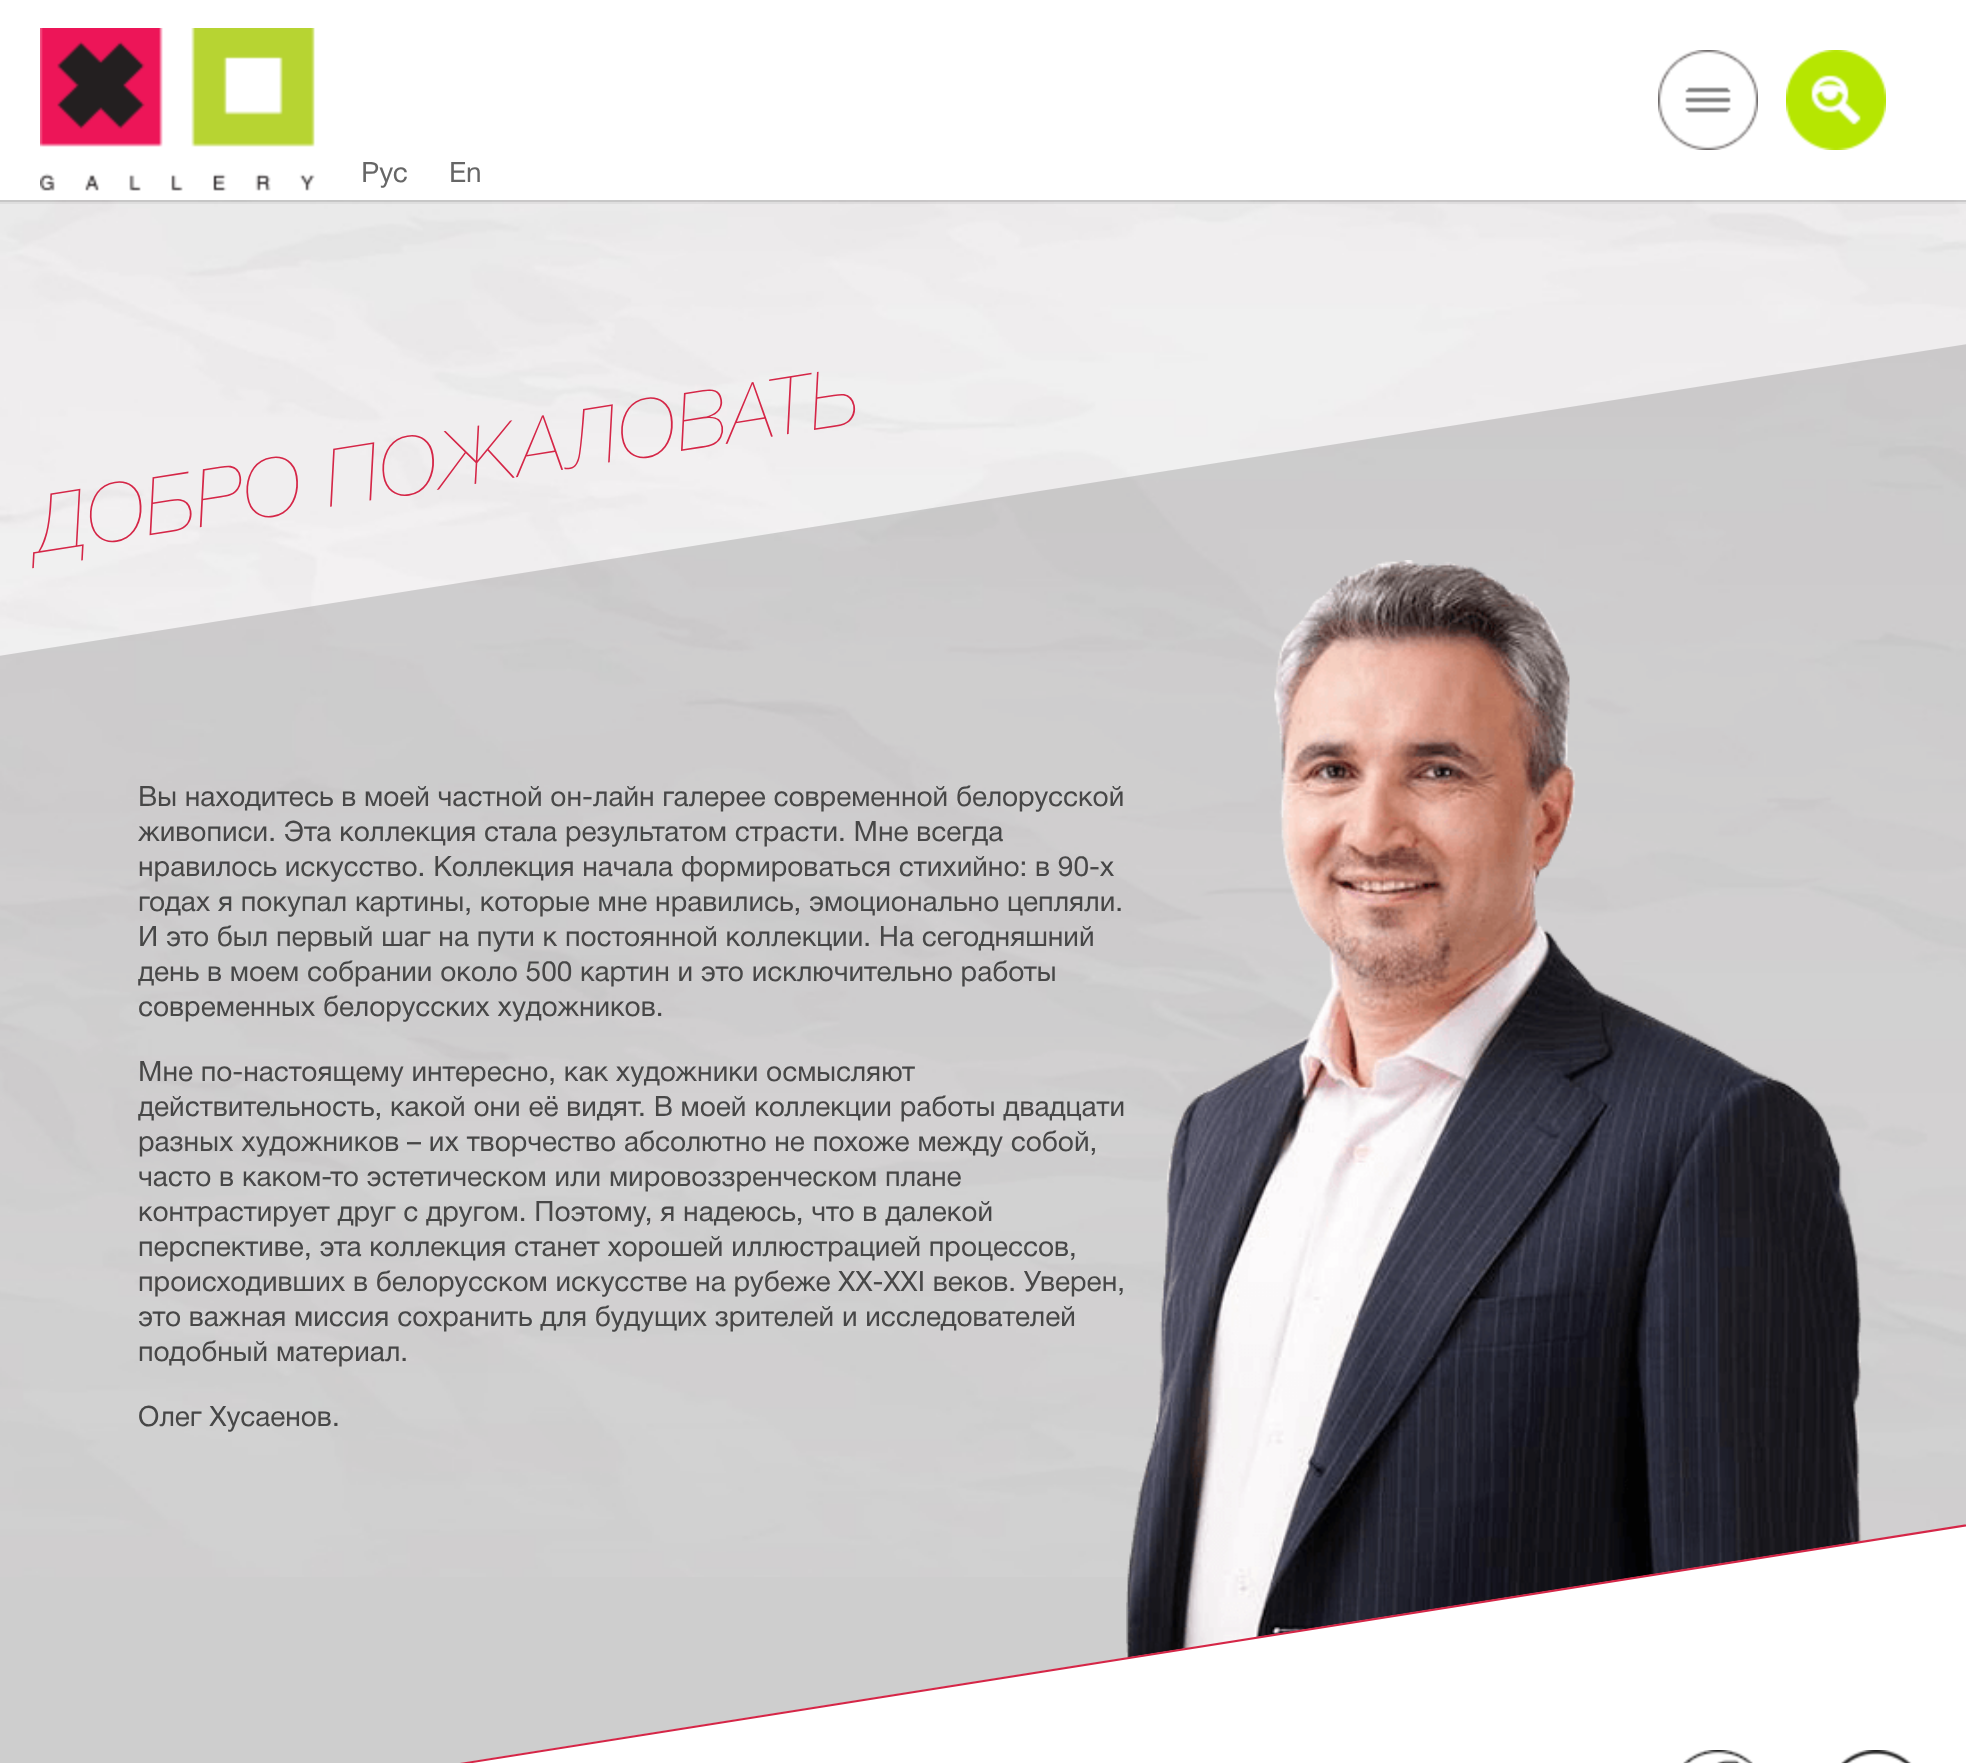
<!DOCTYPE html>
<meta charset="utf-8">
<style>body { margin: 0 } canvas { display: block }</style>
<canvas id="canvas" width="1966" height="1763"></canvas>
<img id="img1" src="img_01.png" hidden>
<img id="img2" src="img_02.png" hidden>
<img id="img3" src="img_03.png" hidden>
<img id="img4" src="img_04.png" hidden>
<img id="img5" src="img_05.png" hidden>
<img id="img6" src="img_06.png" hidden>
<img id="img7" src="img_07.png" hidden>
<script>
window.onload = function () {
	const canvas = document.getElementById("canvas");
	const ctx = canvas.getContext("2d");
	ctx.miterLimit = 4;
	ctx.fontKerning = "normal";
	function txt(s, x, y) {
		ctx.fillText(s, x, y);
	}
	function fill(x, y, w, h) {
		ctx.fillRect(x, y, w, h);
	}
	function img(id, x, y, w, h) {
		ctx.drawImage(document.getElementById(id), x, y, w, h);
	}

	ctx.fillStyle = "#F3F3F3";
	fill(0, 0, 1966, 1763);
	img("img1", 0, 200, 1966, 1377);
	ctx.fillStyle = "rgba(0, 0, 0, 0.05)";
	ctx.beginPath();
	ctx.moveTo(-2, 0);
	ctx.lineTo(-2, 204);
	ctx.lineTo(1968, 204);
	ctx.lineTo(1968, 0);
	ctx.lineTo(1966, 0);
	ctx.lineTo(1966, 200);
	ctx.lineTo(0, 200);
	ctx.lineTo(0, 0);
	ctx.closePath();
	ctx.fill();
	ctx.strokeStyle = "rgba(0, 0, 0, 0.1)";
	ctx.lineWidth = 2;
	ctx.strokeRect(-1, -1, 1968, 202);
	ctx.fillStyle = "#FFFFFF";
	fill(0, 0, 1966, 200);
	img("img2", 40, 28, 275, 163);
	img("img3", 1658, 50, 100, 100);
	img("img4", 1786, 50, 100, 100);
	ctx.fillStyle = "rgba(0, 0, 0, 0.15)";
	ctx.beginPath();
	ctx.moveTo(-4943, 1439);
	ctx.lineTo(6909, -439);
	ctx.lineTo(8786, 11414);
	ctx.lineTo(-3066, 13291);
	ctx.closePath();
	ctx.fill();
	img("img5", 1126, 560, 736, 1098);
	ctx.fillStyle = "#FFFFFF";
	ctx.beginPath();
	ctx.moveTo(-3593, 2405);
	ctx.lineTo(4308, 1154);
	ctx.lineTo(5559, 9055);
	ctx.lineTo(-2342, 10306);
	ctx.closePath();
	ctx.fill();
	ctx.beginPath();
	ctx.moveTo(-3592.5, 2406);
	ctx.lineTo(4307, 1154.5);
	ctx.lineTo(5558.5, 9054);
	ctx.lineTo(-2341, 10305.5);
	ctx.closePath();
	ctx.strokeStyle = "#D52647";
	ctx.stroke();
	img("img6", 1683, 1750, 70, 13);
	img("img7", 1841, 1750, 71, 13);
	ctx.font = "28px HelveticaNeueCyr";
	ctx.fillStyle = "#666666";
	txt("Рус", 361, 182);
	txt("En", 449, 182);
	ctx.letterSpacing = "2px";
	ctx.font = "italic 200 80px HelveticaNeueCyr";
	ctx.fillStyle = "#D52647";
	ctx.save();
	ctx.translate(38, 553);
	ctx.rotate(-9 * Math.PI / 180);
	ctx.fillText("ДОБРО ПОЖАЛОВАТЬ", 0, 0);
	ctx.restore();
	ctx.letterSpacing = "0px";
	ctx.font = "28px HelveticaNeueCyr";
	ctx.fillStyle = "#474747";
	txt("Вы находитесь в моей частной он-лайн галерее современной белорусской", 138, 806);
	txt("живописи. Эта коллекция стала результатом страсти. Мне всегда", 138, 841);
	txt("нравилось искусство. Коллекция начала формироваться стихийно: в 90-х", 138, 876);
	txt("годах я покупал картины, которые мне нравились, эмоционально цепляли.", 138, 911);
	txt("И это был первый шаг на пути к постоянной коллекции. На сегодняшний", 138, 946);
	txt("день в моем собрании около 500 картин и это исключительно работы", 138, 981);
	txt("современных белорусских художников.", 138, 1016);
	txt("Мне по-настоящему интересно, как художники осмысляют", 138, 1081);
	txt("действительность, какой они её видят. В моей коллекции работы двадцати", 138, 1116);
	txt("разных художников – их творчество абсолютно не похоже между собой,", 138, 1151);
	txt("часто в каком-то эстетическом или мировоззренческом плане", 138, 1186);
	txt("контрастирует друг с другом. Поэтому, я надеюсь, что в далекой", 138, 1221);
	txt("перспективе, эта коллекция станет хорошей иллюстрацией процессов,", 138, 1256);
	txt("происходивших в белорусском искусстве на рубеже ХХ-ХХI веков. Уверен,", 138, 1291);
	txt("это важная миссия сохранить для будущих зрителей и исследователей", 138, 1326);
	txt("подобный материал.", 138, 1361);
	txt("Олег Хусаенов.", 138, 1426);
};
</script>
